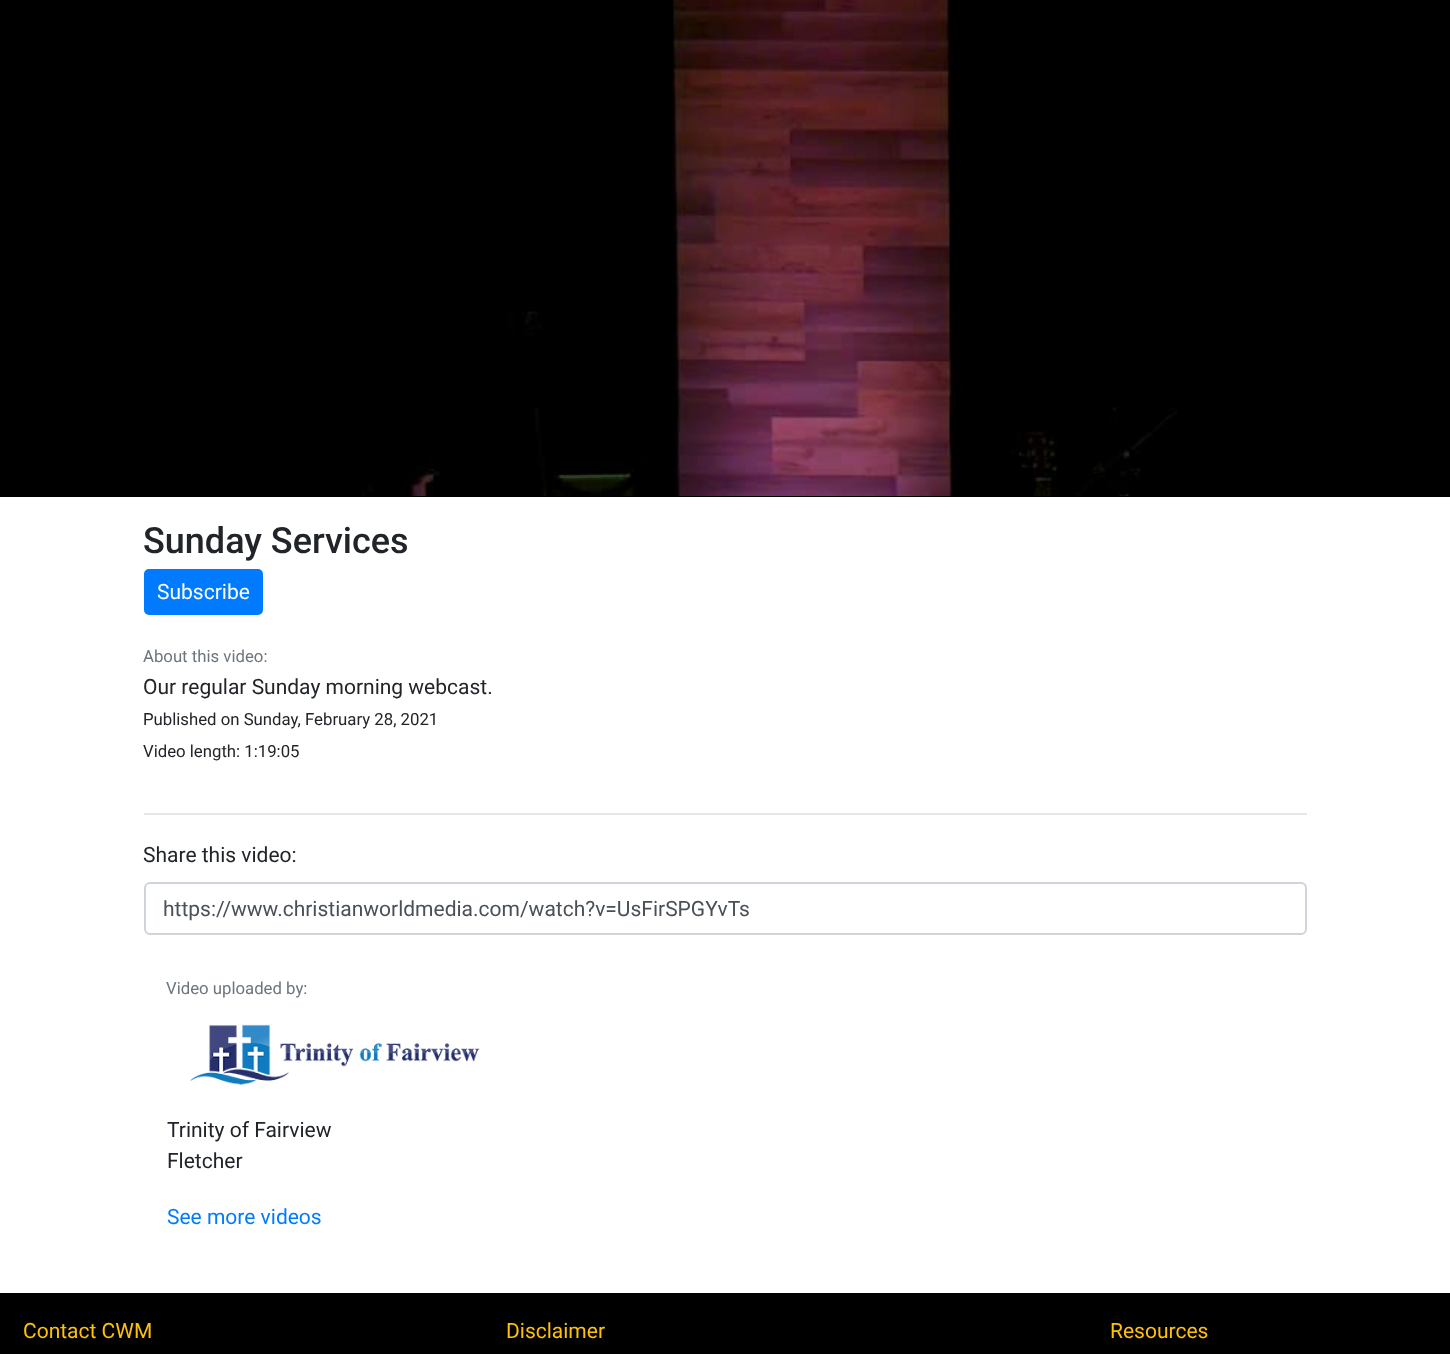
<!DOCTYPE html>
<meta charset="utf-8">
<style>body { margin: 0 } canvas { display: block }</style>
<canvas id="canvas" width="1450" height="1354"></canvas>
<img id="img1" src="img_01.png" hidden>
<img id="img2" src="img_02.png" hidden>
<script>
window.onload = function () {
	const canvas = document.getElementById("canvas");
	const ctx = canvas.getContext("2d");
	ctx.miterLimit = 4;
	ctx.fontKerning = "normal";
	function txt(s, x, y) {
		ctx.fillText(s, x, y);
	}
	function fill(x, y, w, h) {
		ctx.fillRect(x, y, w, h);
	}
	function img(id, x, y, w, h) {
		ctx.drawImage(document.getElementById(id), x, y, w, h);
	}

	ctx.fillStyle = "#FFFFFF";
	fill(0, 0, 1450, 1354);
	ctx.fillStyle = "#000000";
	fill(0, 0, 1450, 497);
	img("img1", 362, 0, 815, 496);
	ctx.fillStyle = "#007BFF";
	ctx.beginPath();
	ctx.roundRect(145, 570, 117, 44, 4);
	ctx.fill();
	ctx.strokeStyle = "#007BFF";
	ctx.lineWidth = 2;
	ctx.stroke();
	ctx.fillStyle = "#E6E6E6";
	fill(144, 813, 1163, 2);
	ctx.beginPath();
	ctx.roundRect(145, 883, 1161, 51, 5);
	ctx.strokeStyle = "#CED4DA";
	ctx.stroke();
	img("img2", 190, 1024, 290, 61);
	ctx.fillStyle = "#000000";
	fill(0, 1293, 1450, 61);
	ctx.font = "500 36px Roboto";
	ctx.fillStyle = "#212529";
	txt("Sunday Services", 143, 553);
	ctx.font = "21px Roboto";
	ctx.fillStyle = "#FFFFFF";
	txt("Subscribe", 157, 599);
	ctx.font = "16.75px Roboto";
	ctx.fillStyle = "#6C757D";
	txt("About this video:", 143, 662);
	ctx.font = "21px Roboto";
	ctx.fillStyle = "#212529";
	txt("Our regular Sunday morning webcast.", 143, 694);
	ctx.font = "16.75px Roboto";
	txt("Published on Sunday, February 28, 2021", 143, 725);
	txt("Video length: 1:19:05", 143, 757);
	ctx.font = "21px Roboto";
	txt("Share this video:", 143, 862);
	ctx.fillStyle = "#495057";
	txt("https://www.christianworldmedia.com/watch?v=UsFirSPGYvTs", 163, 916);
	ctx.font = "16.75px Roboto";
	ctx.fillStyle = "#6C757D";
	txt("Video uploaded by:", 166, 994);
	ctx.font = "21px Roboto";
	ctx.fillStyle = "#212529";
	txt("Trinity of Fairview", 167, 1137);
	txt("Fletcher", 167, 1168);
	ctx.fillStyle = "#007BFF";
	txt("See more videos", 167, 1224);
	ctx.fillStyle = "#FFC107";
	txt("Contact CWM", 23, 1338);
	txt("Disclaimer", 506, 1338);
	txt("Resources", 1110, 1338);
};
</script>
